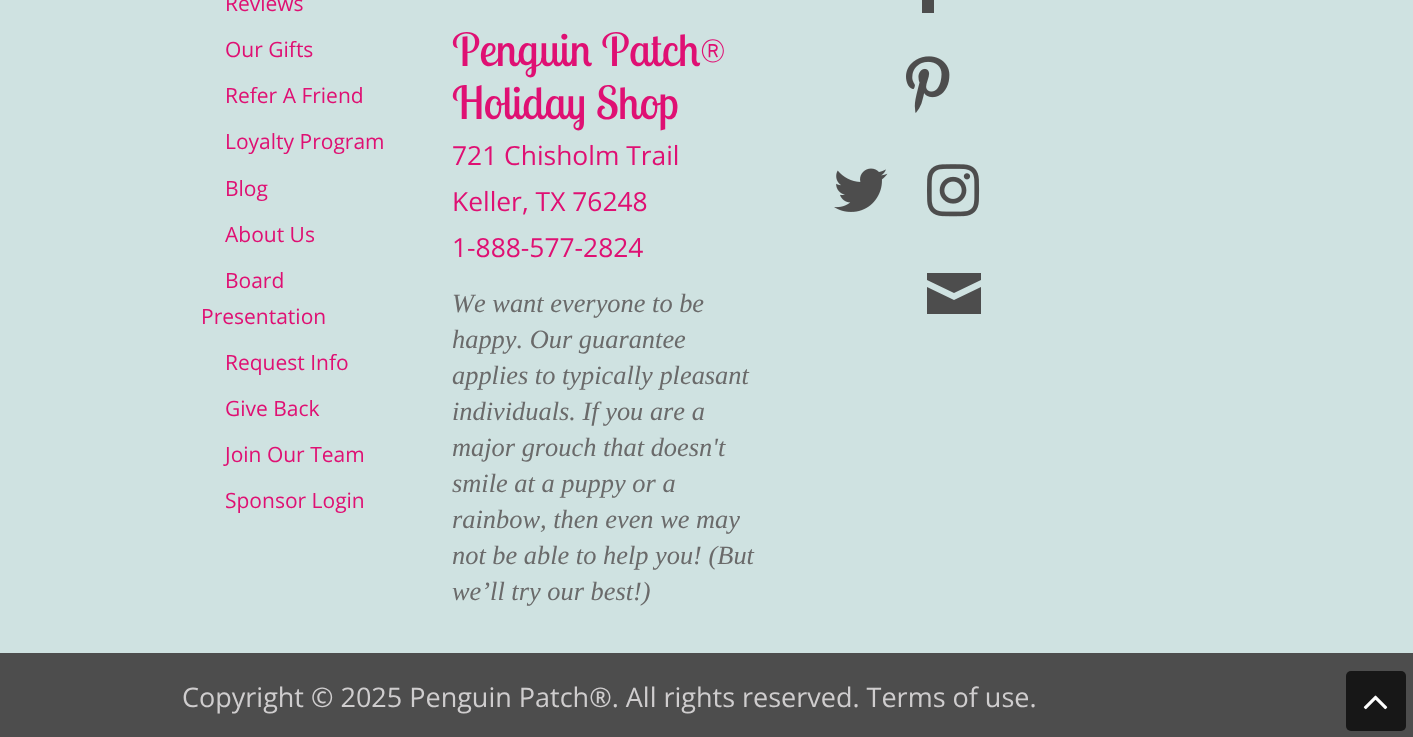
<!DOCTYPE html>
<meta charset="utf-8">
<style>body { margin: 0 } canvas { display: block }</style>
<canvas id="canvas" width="1413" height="737"></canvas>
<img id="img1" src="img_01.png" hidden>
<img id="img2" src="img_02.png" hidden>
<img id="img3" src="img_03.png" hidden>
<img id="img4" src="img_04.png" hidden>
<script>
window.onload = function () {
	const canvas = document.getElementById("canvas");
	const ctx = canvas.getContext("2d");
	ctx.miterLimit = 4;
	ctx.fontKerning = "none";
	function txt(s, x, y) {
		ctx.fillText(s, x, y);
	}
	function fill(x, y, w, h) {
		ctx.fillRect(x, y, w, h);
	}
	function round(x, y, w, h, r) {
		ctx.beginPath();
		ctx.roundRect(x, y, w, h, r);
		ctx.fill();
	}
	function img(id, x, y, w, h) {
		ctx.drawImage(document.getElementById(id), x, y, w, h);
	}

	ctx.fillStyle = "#CFE2E1";
	fill(0, 0, 1413, 737);
	ctx.fillStyle = "#4D4D4D";
	fill(922, 0, 12, 13);
	img("img1", 906, 56, 44, 57);
	img("img2", 834, 168, 54, 44);
	img("img3", 927, 164, 53, 53);
	ctx.beginPath();
	ctx.moveTo(954, 293);
	ctx.lineTo(927, 280);
	ctx.lineTo(927, 273);
	ctx.lineTo(981, 273);
	ctx.lineTo(981, 280);
	ctx.closePath();
	ctx.moveTo(954, 300);
	ctx.lineTo(981, 287);
	ctx.lineTo(981, 314);
	ctx.lineTo(927, 314);
	ctx.lineTo(927, 287);
	ctx.closePath();
	ctx.fill();
	fill(0, 653, 1413, 84);
	ctx.fillStyle = "#171717";
	round(1346, 671, 60, 60, 5);
	img("img4", 1363, 695, 25, 15);
	ctx.font = "21px Open Sans";
	ctx.fillStyle = "#DF1073";
	txt("Reviews", 225, 11);
	txt("Our Gifts", 225, 57);
	txt("Refer A Friend", 225, 103);
	txt("Loyalty Program", 225, 149);
	txt("Blog", 225, 196);
	txt("About Us", 225, 242);
	txt("Board", 225, 288);
	txt("Presentation", 201, 324);
	txt("Request Info", 225, 370);
	txt("Give Back", 225, 416);
	txt("Join Our Team", 225, 462);
	txt("Sponsor Login", 225, 508);
	ctx.font = "45.5px Lobster Two";
	txt("Penguin Patch®", 452, 66);
	txt("Holiday Shop", 452, 119);
	ctx.font = "26.4px Open Sans";
	txt("721 Chisholm Trail", 452, 165);
	txt("Keller, TX 76248", 452, 211);
	txt("1-888-577-2824", 452, 257);
	ctx.font = "italic 26.4px Liberation Serif";
	ctx.fillStyle = "#6A6A6A";
	txt("We want everyone to be", 452, 312);
	txt("happy. Our guarantee", 452, 348);
	txt("applies to typically pleasant", 452, 384);
	txt("individuals. If you are a", 452, 420);
	txt("major grouch that doesn't", 452, 456);
	txt("smile at a puppy or a", 452, 492);
	txt("rainbow, then even we may", 452, 528);
	txt("not be able to help you! (But", 452, 564);
	txt("we’ll try our best!)", 452, 600);
	ctx.font = "27px Open Sans";
	ctx.fillStyle = "#CFCDCE";
	txt("Copyright © 2025 Penguin Patch®. All rights reserved. Terms of use.", 182, 707);
};
</script>
